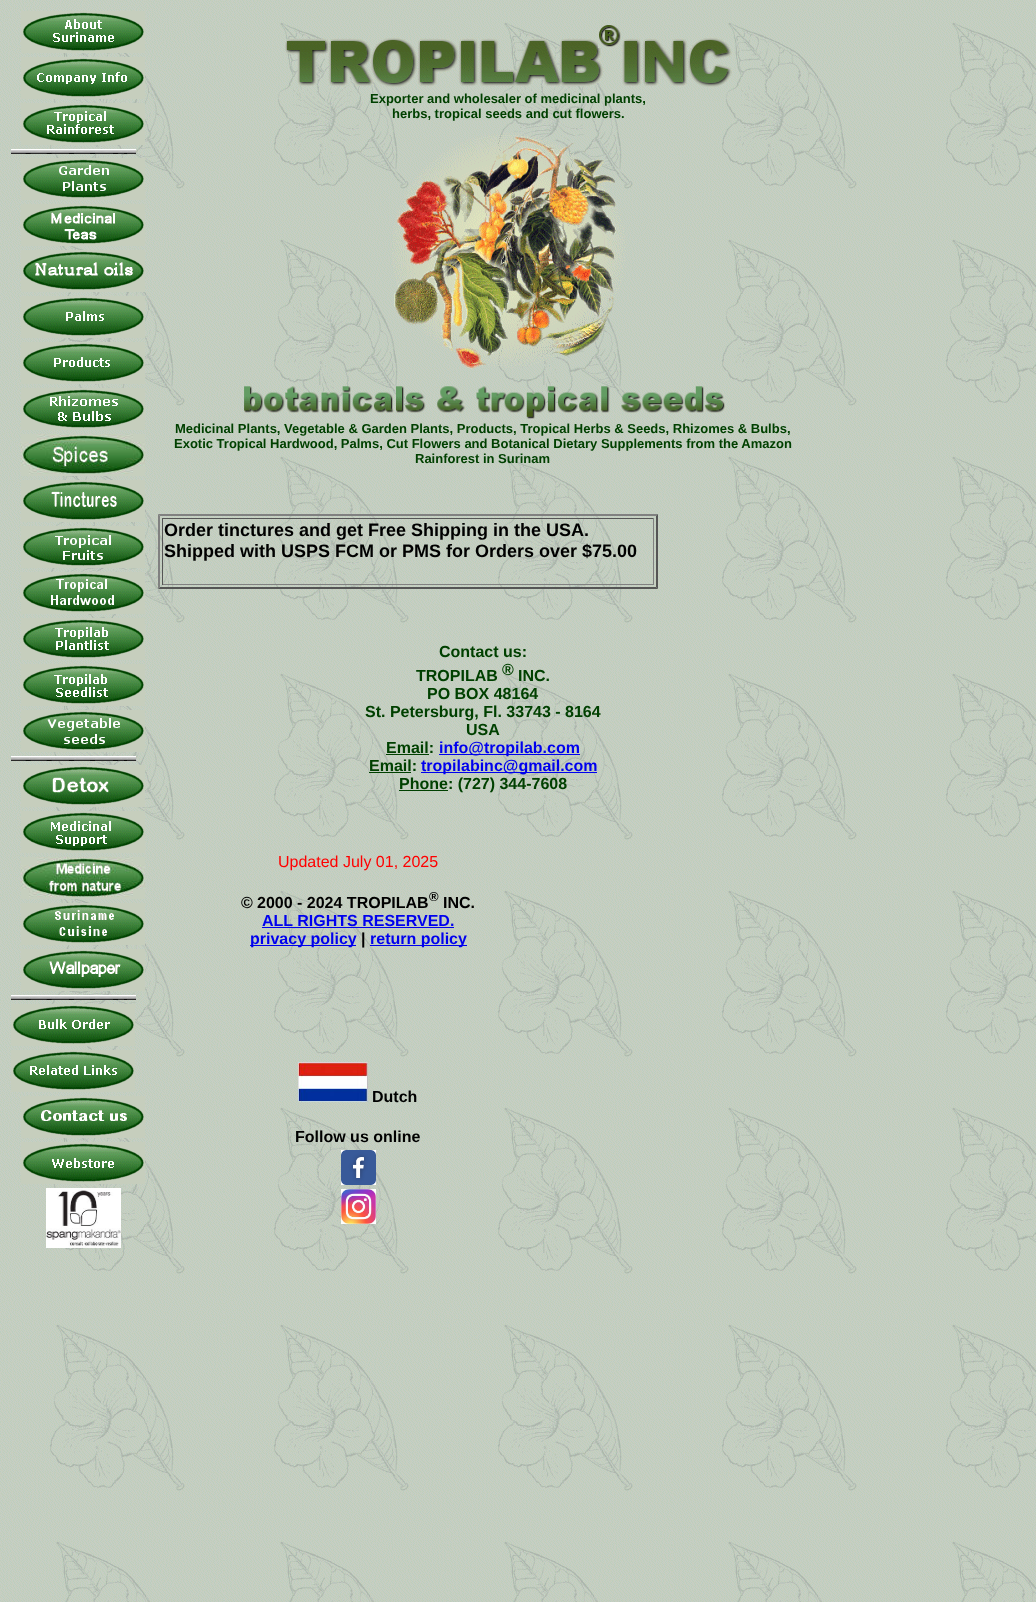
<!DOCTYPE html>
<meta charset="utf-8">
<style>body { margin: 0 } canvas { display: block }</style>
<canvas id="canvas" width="1036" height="1602"></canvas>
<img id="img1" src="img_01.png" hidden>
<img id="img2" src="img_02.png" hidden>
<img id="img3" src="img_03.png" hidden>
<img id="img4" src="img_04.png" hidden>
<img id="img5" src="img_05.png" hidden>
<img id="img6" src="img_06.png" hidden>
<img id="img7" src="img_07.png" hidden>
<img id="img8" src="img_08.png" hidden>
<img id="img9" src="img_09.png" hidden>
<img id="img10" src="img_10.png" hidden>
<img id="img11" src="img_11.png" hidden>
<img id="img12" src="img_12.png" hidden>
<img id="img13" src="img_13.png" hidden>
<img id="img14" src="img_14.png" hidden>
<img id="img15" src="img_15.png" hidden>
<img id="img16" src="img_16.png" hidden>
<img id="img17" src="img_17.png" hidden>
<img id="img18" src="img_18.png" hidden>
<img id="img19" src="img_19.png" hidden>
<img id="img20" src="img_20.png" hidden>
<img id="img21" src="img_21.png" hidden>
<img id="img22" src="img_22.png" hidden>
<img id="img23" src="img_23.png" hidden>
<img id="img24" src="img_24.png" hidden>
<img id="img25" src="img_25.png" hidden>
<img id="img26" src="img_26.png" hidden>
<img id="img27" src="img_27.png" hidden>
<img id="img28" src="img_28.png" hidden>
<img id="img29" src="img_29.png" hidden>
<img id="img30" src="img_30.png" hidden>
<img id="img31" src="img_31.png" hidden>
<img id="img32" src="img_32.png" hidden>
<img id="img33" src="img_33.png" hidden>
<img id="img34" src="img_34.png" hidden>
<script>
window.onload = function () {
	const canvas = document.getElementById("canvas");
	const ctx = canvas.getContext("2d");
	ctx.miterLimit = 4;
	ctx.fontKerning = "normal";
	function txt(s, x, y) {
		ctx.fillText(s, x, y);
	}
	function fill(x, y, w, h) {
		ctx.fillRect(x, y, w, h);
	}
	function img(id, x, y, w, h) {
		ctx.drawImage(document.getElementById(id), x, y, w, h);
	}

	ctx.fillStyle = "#FFFFFF";
	fill(0, 0, 1036, 1602);
	img("img1", 0, 0, 1036, 1602);
	img("img2", 21, 11, 124, 42);
	img("img3", 21, 57, 124, 42);
	img("img4", 21, 103, 124, 42);
	img("img5", 11, 149, 125, 5);
	img("img6", 21, 158, 124, 42);
	img("img7", 21, 204, 124, 42);
	img("img8", 21, 250, 124, 42);
	img("img9", 21, 296, 124, 42);
	img("img10", 21, 342, 124, 42);
	img("img11", 21, 388, 124, 42);
	img("img12", 21, 434, 124, 42);
	img("img13", 21, 480, 124, 42);
	img("img14", 21, 526, 124, 42);
	img("img15", 21, 572, 124, 42);
	img("img16", 21, 618, 124, 42);
	img("img17", 21, 664, 124, 42);
	img("img18", 21, 710, 124, 42);
	img("img5", 11, 756, 125, 5);
	img("img19", 21, 765, 124, 42);
	img("img20", 21, 811, 124, 42);
	img("img21", 21, 857, 124, 42);
	img("img22", 21, 903, 124, 42);
	img("img23", 21, 949, 124, 42);
	img("img5", 11, 995, 125, 5);
	img("img24", 11, 1004, 124, 42);
	img("img25", 11, 1050, 124, 42);
	img("img26", 21, 1096, 124, 42);
	img("img27", 21, 1142, 124, 42);
	img("img28", 46, 1188, 75, 60);
	img("img29", 285, 25, 447, 63);
	img("img30", 391, 133, 236, 236);
	img("img31", 244, 386, 481, 33);
	ctx.fillStyle = "#808080";
	ctx.beginPath();
	ctx.moveTo(158, 514);
	ctx.lineTo(658, 514);
	ctx.lineTo(656, 516);
	ctx.lineTo(160, 516);
	ctx.closePath();
	ctx.fill();
	ctx.fillStyle = "#555555";
	ctx.beginPath();
	ctx.moveTo(658, 514);
	ctx.lineTo(658, 589);
	ctx.lineTo(656, 587);
	ctx.lineTo(656, 516);
	ctx.closePath();
	ctx.fill();
	ctx.beginPath();
	ctx.moveTo(658, 589);
	ctx.lineTo(158, 589);
	ctx.lineTo(160, 587);
	ctx.lineTo(656, 587);
	ctx.closePath();
	ctx.fill();
	ctx.fillStyle = "#808080";
	ctx.beginPath();
	ctx.moveTo(158, 589);
	ctx.lineTo(158, 514);
	ctx.lineTo(160, 516);
	ctx.lineTo(160, 587);
	ctx.closePath();
	ctx.fill();
	ctx.fillStyle = "#555555";
	fill(162, 518, 492, 1);
	ctx.fillStyle = "#808080";
	fill(653, 518, 1, 67);
	fill(162, 584, 492, 1);
	ctx.fillStyle = "#555555";
	fill(162, 518, 1, 67);
	ctx.fillStyle = "#004000";
	fill(386, 754, 43, 1);
	ctx.fillStyle = "#0000EE";
	fill(439, 754, 141, 1);
	ctx.fillStyle = "#004000";
	fill(369, 772, 42, 1);
	ctx.fillStyle = "#0000EE";
	fill(421, 772, 176, 1);
	ctx.fillStyle = "#004000";
	fill(399, 790, 49, 1);
	ctx.fillStyle = "#0000EE";
	fill(262, 927, 192, 1);
	fill(250, 945, 106, 1);
	fill(370, 945, 97, 1);
	img("img32", 298, 1062, 70, 40);
	img("img33", 341, 1150, 35, 35);
	img("img34", 341, 1189, 35, 35);
	ctx.font = "bold 13px Liberation Sans";
	ctx.fillStyle = "#004000";
	txt("Exporter and wholesaler of medicinal plants,", 370, 103);
	txt("herbs, tropical seeds and cut flowers.", 392, 118);
	txt("Medicinal Plants, Vegetable & Garden Plants, Products, Tropical Herbs & Seeds, Rhizomes & Bulbs,", 175, 433);
	txt("Exotic Tropical Hardwood, Palms, Cut Flowers and Botanical Dietary Supplements from the Amazon", 174, 448);
	txt("Rainforest in Surinam", 415, 463);
	ctx.font = "bold 18px Liberation Sans";
	ctx.fillStyle = "#000000";
	txt("Order tinctures and get Free Shipping in the USA.", 164, 536);
	txt("Shipped with USPS FCM or PMS for Orders over $75.00", 164, 557);
	ctx.font = "bold 16px Liberation Sans";
	ctx.fillStyle = "#004000";
	txt("Contact us:", 439, 657);
	txt("TROPILAB", 416, 681);
	txt("®", 502, 675);
	txt("INC.", 518, 681);
	txt("PO BOX 48164", 427, 699);
	txt("St. Petersburg, Fl. 33743 - 8164", 365, 717);
	txt("USA", 466, 735);
	txt("Email:", 386, 753);
	ctx.fillStyle = "#0000EE";
	txt("info@tropilab.com", 439, 753);
	ctx.fillStyle = "#004000";
	txt("Email:", 369, 771);
	ctx.fillStyle = "#0000EE";
	txt("tropilabinc@gmail.com", 421, 771);
	ctx.fillStyle = "#004000";
	txt("Phone: (727) 344-7608", 399, 789);
	ctx.font = "16px Liberation Sans";
	ctx.fillStyle = "#FF0000";
	txt("Updated July 01, 2025", 278, 867);
	ctx.font = "bold 16px Liberation Sans";
	ctx.fillStyle = "#000000";
	txt("©", 241, 908);
	txt("2000 - 2024 TROPILAB", 257, 908);
	ctx.font = "bold 13px Liberation Sans";
	txt("®", 429, 901);
	ctx.font = "bold 16px Liberation Sans";
	txt("INC.", 443, 908);
	ctx.fillStyle = "#0000EE";
	txt("ALL RIGHTS RESERVED.", 262, 926);
	txt("privacy policy", 250, 944);
	ctx.fillStyle = "#000000";
	txt("|", 361, 944);
	ctx.fillStyle = "#0000EE";
	txt("return policy", 370, 944);
	ctx.fillStyle = "#000000";
	txt("Dutch", 372, 1102);
	txt("Follow us online", 295, 1142);
};
</script>
